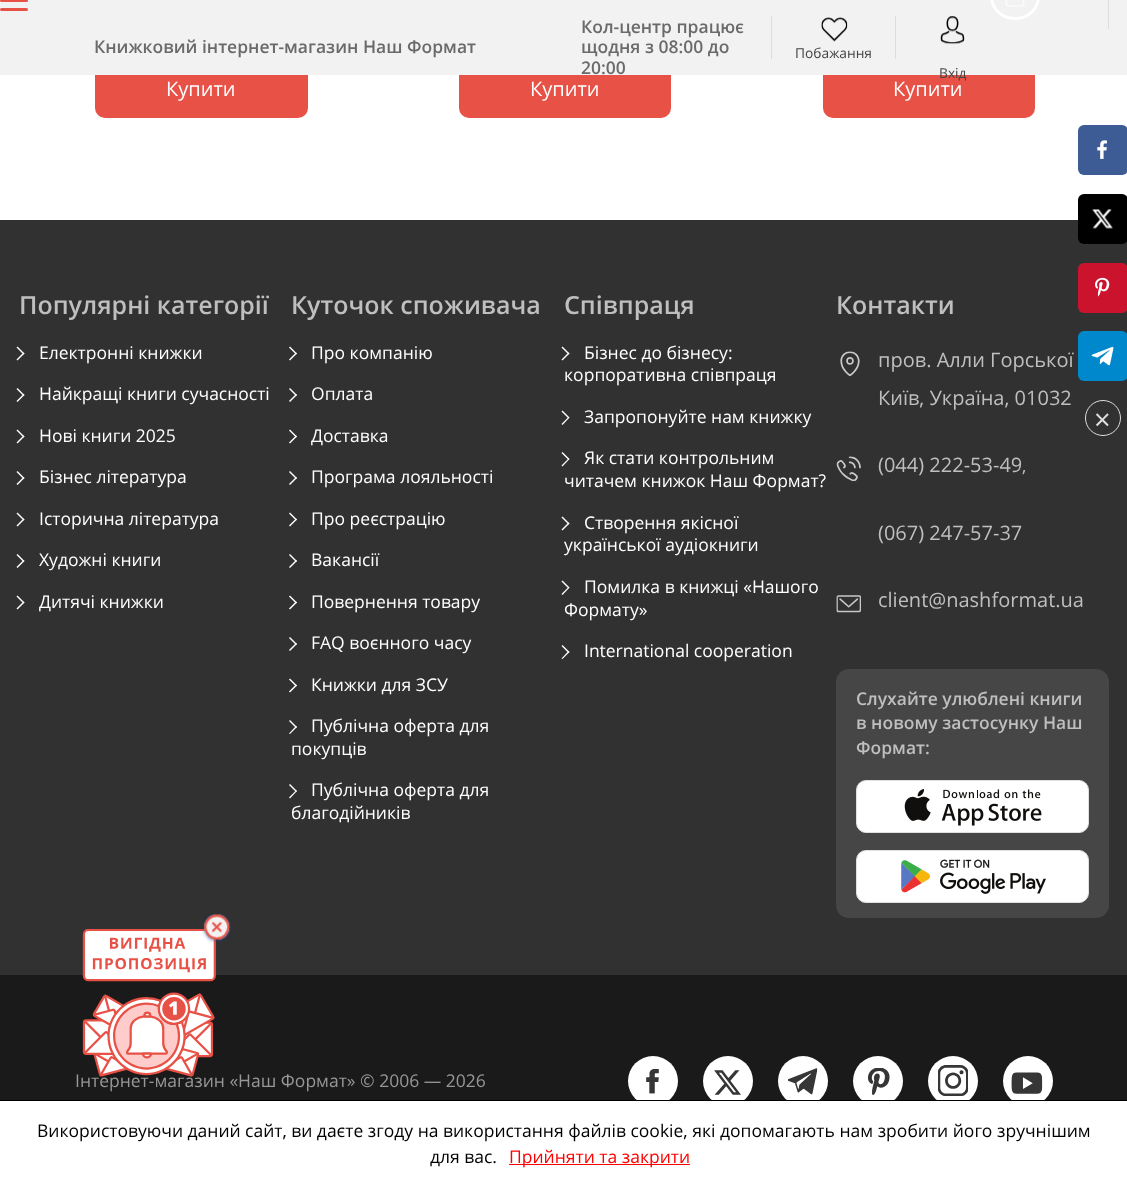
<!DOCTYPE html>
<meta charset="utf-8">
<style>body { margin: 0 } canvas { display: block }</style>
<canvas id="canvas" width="1127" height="1187"></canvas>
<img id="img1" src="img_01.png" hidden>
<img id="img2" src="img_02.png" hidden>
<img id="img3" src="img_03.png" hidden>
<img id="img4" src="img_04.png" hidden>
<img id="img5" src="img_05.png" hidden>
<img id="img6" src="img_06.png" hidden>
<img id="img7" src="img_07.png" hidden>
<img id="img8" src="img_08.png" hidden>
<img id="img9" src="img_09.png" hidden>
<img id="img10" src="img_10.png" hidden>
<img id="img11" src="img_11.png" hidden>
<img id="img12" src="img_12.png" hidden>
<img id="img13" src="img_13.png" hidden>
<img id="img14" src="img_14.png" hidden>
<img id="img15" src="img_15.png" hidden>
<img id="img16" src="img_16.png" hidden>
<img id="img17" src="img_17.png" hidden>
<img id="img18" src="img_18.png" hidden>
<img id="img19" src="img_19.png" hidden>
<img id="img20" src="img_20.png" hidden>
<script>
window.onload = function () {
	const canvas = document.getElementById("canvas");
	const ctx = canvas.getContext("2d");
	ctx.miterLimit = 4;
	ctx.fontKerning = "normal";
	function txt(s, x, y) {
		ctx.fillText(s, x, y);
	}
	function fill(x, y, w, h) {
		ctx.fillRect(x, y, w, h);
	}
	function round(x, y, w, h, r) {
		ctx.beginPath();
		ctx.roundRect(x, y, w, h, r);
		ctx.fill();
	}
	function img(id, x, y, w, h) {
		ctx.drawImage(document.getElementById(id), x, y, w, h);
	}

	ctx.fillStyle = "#FFFFFF";
	fill(0, 0, 1127, 1187);
	ctx.fillStyle = "#E85146";
	round(95, 55, 213, 63, 10);
	round(459, 55, 212, 63, 10);
	round(823, 55, 212, 63, 10);
	ctx.fillStyle = "#F2F2F2";
	fill(0, 0, 1127, 75);
	ctx.fillStyle = "#E85146";
	round(0, -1, 28, 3, 1.5);
	round(0, 8, 28, 3, 1.5);
	ctx.fillStyle = "#DDDDDD";
	fill(1108, 0, 1, 29);
	ctx.beginPath();
	ctx.roundRect(991.5, -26.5, 47, 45, 23.5);
	ctx.strokeStyle = "#FFFFFF";
	ctx.lineWidth = 3;
	ctx.stroke();
	img("img1", 1005, 0, 20, 7);
	fill(895, 16, 1, 43);
	fill(771, 16, 1, 43);
	img("img2", 821, 17, 27, 25);
	img("img3", 940, 16, 25, 29);
	ctx.fillStyle = "#3D5B95";
	round(1078, 125, 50, 50, 6);
	img("img4", 1097, 140, 10, 19);
	ctx.fillStyle = "#313131";
	fill(0, 220, 1127, 755);
	ctx.fillStyle = "#000000";
	round(1078, 194, 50, 50, 6);
	img("img5", 1092, 209, 21, 20);
	ctx.fillStyle = "#CB132D";
	round(1078, 263, 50, 50, 6);
	img("img6", 1095, 277, 15, 20);
	ctx.fillStyle = "#0088CC";
	round(1078, 331, 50, 50, 6);
	img("img7", 1091, 346, 23, 20);
	ctx.beginPath();
	ctx.arc(1103, 418, 17.5, 0, Math.PI * 2);
	ctx.strokeStyle = "#DEDEDE";
	ctx.lineWidth = 1;
	ctx.stroke();
	ctx.fillStyle = "#FFFFFF";
	ctx.beginPath();
	ctx.moveTo(16.5, 347.5);
	ctx.lineTo(17.5, 346.5);
	ctx.lineTo(24.5, 353.5);
	ctx.lineTo(23.5, 354.5);
	ctx.closePath();
	ctx.fill();
	ctx.beginPath();
	ctx.moveTo(16.5, 359.5);
	ctx.lineTo(23.5, 352.5);
	ctx.lineTo(24.5, 353.5);
	ctx.lineTo(17.5, 360.5);
	ctx.closePath();
	ctx.fill();
	ctx.beginPath();
	ctx.moveTo(16.5, 389);
	ctx.lineTo(17.5, 388);
	ctx.lineTo(24.5, 395);
	ctx.lineTo(23.5, 396);
	ctx.closePath();
	ctx.fill();
	ctx.beginPath();
	ctx.moveTo(16.5, 401);
	ctx.lineTo(23.5, 394);
	ctx.lineTo(24.5, 395);
	ctx.lineTo(17.5, 402);
	ctx.closePath();
	ctx.fill();
	ctx.beginPath();
	ctx.moveTo(16.5, 430.5);
	ctx.lineTo(17.5, 429.5);
	ctx.lineTo(24.5, 436.5);
	ctx.lineTo(23.5, 437.5);
	ctx.closePath();
	ctx.fill();
	ctx.beginPath();
	ctx.moveTo(16.5, 442.5);
	ctx.lineTo(23.5, 435.5);
	ctx.lineTo(24.5, 436.5);
	ctx.lineTo(17.5, 443.5);
	ctx.closePath();
	ctx.fill();
	ctx.beginPath();
	ctx.moveTo(16.5, 472);
	ctx.lineTo(17.5, 471);
	ctx.lineTo(24.5, 478);
	ctx.lineTo(23.5, 479);
	ctx.closePath();
	ctx.fill();
	ctx.beginPath();
	ctx.moveTo(16.5, 484);
	ctx.lineTo(23.5, 477);
	ctx.lineTo(24.5, 478);
	ctx.lineTo(17.5, 485);
	ctx.closePath();
	ctx.fill();
	ctx.beginPath();
	ctx.moveTo(16.5, 513.5);
	ctx.lineTo(17.5, 512.5);
	ctx.lineTo(24.5, 519.5);
	ctx.lineTo(23.5, 520.5);
	ctx.closePath();
	ctx.fill();
	ctx.beginPath();
	ctx.moveTo(16.5, 525.5);
	ctx.lineTo(23.5, 518.5);
	ctx.lineTo(24.5, 519.5);
	ctx.lineTo(17.5, 526.5);
	ctx.closePath();
	ctx.fill();
	ctx.beginPath();
	ctx.moveTo(16.5, 555);
	ctx.lineTo(17.5, 554);
	ctx.lineTo(24.5, 561);
	ctx.lineTo(23.5, 562);
	ctx.closePath();
	ctx.fill();
	ctx.beginPath();
	ctx.moveTo(16.5, 567);
	ctx.lineTo(23.5, 560);
	ctx.lineTo(24.5, 561);
	ctx.lineTo(17.5, 568);
	ctx.closePath();
	ctx.fill();
	ctx.beginPath();
	ctx.moveTo(16.5, 596.5);
	ctx.lineTo(17.5, 595.5);
	ctx.lineTo(24.5, 602.5);
	ctx.lineTo(23.5, 603.5);
	ctx.closePath();
	ctx.fill();
	ctx.beginPath();
	ctx.moveTo(16.5, 608.5);
	ctx.lineTo(23.5, 601.5);
	ctx.lineTo(24.5, 602.5);
	ctx.lineTo(17.5, 609.5);
	ctx.closePath();
	ctx.fill();
	ctx.beginPath();
	ctx.moveTo(289, 347.5);
	ctx.lineTo(290, 346.5);
	ctx.lineTo(297, 353.5);
	ctx.lineTo(296, 354.5);
	ctx.closePath();
	ctx.fill();
	ctx.beginPath();
	ctx.moveTo(289, 359.5);
	ctx.lineTo(296, 352.5);
	ctx.lineTo(297, 353.5);
	ctx.lineTo(290, 360.5);
	ctx.closePath();
	ctx.fill();
	ctx.beginPath();
	ctx.moveTo(289, 389);
	ctx.lineTo(290, 388);
	ctx.lineTo(297, 395);
	ctx.lineTo(296, 396);
	ctx.closePath();
	ctx.fill();
	ctx.beginPath();
	ctx.moveTo(289, 401);
	ctx.lineTo(296, 394);
	ctx.lineTo(297, 395);
	ctx.lineTo(290, 402);
	ctx.closePath();
	ctx.fill();
	ctx.beginPath();
	ctx.moveTo(289, 430.5);
	ctx.lineTo(290, 429.5);
	ctx.lineTo(297, 436.5);
	ctx.lineTo(296, 437.5);
	ctx.closePath();
	ctx.fill();
	ctx.beginPath();
	ctx.moveTo(289, 442.5);
	ctx.lineTo(296, 435.5);
	ctx.lineTo(297, 436.5);
	ctx.lineTo(290, 443.5);
	ctx.closePath();
	ctx.fill();
	ctx.beginPath();
	ctx.moveTo(289, 472);
	ctx.lineTo(290, 471);
	ctx.lineTo(297, 478);
	ctx.lineTo(296, 479);
	ctx.closePath();
	ctx.fill();
	ctx.beginPath();
	ctx.moveTo(289, 484);
	ctx.lineTo(296, 477);
	ctx.lineTo(297, 478);
	ctx.lineTo(290, 485);
	ctx.closePath();
	ctx.fill();
	ctx.beginPath();
	ctx.moveTo(289, 513.5);
	ctx.lineTo(290, 512.5);
	ctx.lineTo(297, 519.5);
	ctx.lineTo(296, 520.5);
	ctx.closePath();
	ctx.fill();
	ctx.beginPath();
	ctx.moveTo(289, 525.5);
	ctx.lineTo(296, 518.5);
	ctx.lineTo(297, 519.5);
	ctx.lineTo(290, 526.5);
	ctx.closePath();
	ctx.fill();
	ctx.beginPath();
	ctx.moveTo(289, 555);
	ctx.lineTo(290, 554);
	ctx.lineTo(297, 561);
	ctx.lineTo(296, 562);
	ctx.closePath();
	ctx.fill();
	ctx.beginPath();
	ctx.moveTo(289, 567);
	ctx.lineTo(296, 560);
	ctx.lineTo(297, 561);
	ctx.lineTo(290, 568);
	ctx.closePath();
	ctx.fill();
	ctx.beginPath();
	ctx.moveTo(289, 596.5);
	ctx.lineTo(290, 595.5);
	ctx.lineTo(297, 602.5);
	ctx.lineTo(296, 603.5);
	ctx.closePath();
	ctx.fill();
	ctx.beginPath();
	ctx.moveTo(289, 608.5);
	ctx.lineTo(296, 601.5);
	ctx.lineTo(297, 602.5);
	ctx.lineTo(290, 609.5);
	ctx.closePath();
	ctx.fill();
	ctx.beginPath();
	ctx.moveTo(289, 638);
	ctx.lineTo(290, 637);
	ctx.lineTo(297, 644);
	ctx.lineTo(296, 645);
	ctx.closePath();
	ctx.fill();
	ctx.beginPath();
	ctx.moveTo(289, 650);
	ctx.lineTo(296, 643);
	ctx.lineTo(297, 644);
	ctx.lineTo(290, 651);
	ctx.closePath();
	ctx.fill();
	ctx.beginPath();
	ctx.moveTo(289, 679.5);
	ctx.lineTo(290, 678.5);
	ctx.lineTo(297, 685.5);
	ctx.lineTo(296, 686.5);
	ctx.closePath();
	ctx.fill();
	ctx.beginPath();
	ctx.moveTo(289, 691.5);
	ctx.lineTo(296, 684.5);
	ctx.lineTo(297, 685.5);
	ctx.lineTo(290, 692.5);
	ctx.closePath();
	ctx.fill();
	ctx.beginPath();
	ctx.moveTo(289, 721);
	ctx.lineTo(290, 720);
	ctx.lineTo(297, 727);
	ctx.lineTo(296, 728);
	ctx.closePath();
	ctx.fill();
	ctx.beginPath();
	ctx.moveTo(289, 733.5);
	ctx.lineTo(296, 726);
	ctx.lineTo(297, 727);
	ctx.lineTo(290, 734);
	ctx.closePath();
	ctx.fill();
	ctx.beginPath();
	ctx.moveTo(289, 785);
	ctx.lineTo(290, 784);
	ctx.lineTo(297, 791);
	ctx.lineTo(296, 792);
	ctx.closePath();
	ctx.fill();
	ctx.beginPath();
	ctx.moveTo(289, 797.5);
	ctx.lineTo(296, 790.5);
	ctx.lineTo(297, 791);
	ctx.lineTo(290, 798.5);
	ctx.closePath();
	ctx.fill();
	ctx.beginPath();
	ctx.moveTo(561.5, 347.5);
	ctx.lineTo(562.5, 346.5);
	ctx.lineTo(569.5, 353.5);
	ctx.lineTo(568.5, 354.5);
	ctx.closePath();
	ctx.fill();
	ctx.beginPath();
	ctx.moveTo(561.5, 359.5);
	ctx.lineTo(568.5, 352.5);
	ctx.lineTo(569.5, 353.5);
	ctx.lineTo(562.5, 360.5);
	ctx.closePath();
	ctx.fill();
	ctx.beginPath();
	ctx.moveTo(561.5, 411.5);
	ctx.lineTo(562.5, 410.5);
	ctx.lineTo(569.5, 417.5);
	ctx.lineTo(568.5, 418.5);
	ctx.closePath();
	ctx.fill();
	ctx.beginPath();
	ctx.moveTo(561.5, 424);
	ctx.lineTo(568.5, 417);
	ctx.lineTo(569.5, 417.5);
	ctx.lineTo(562.5, 425);
	ctx.closePath();
	ctx.fill();
	ctx.beginPath();
	ctx.moveTo(561.5, 453);
	ctx.lineTo(562.5, 452);
	ctx.lineTo(569.5, 459);
	ctx.lineTo(568.5, 460);
	ctx.closePath();
	ctx.fill();
	ctx.beginPath();
	ctx.moveTo(561.5, 465.5);
	ctx.lineTo(568.5, 458.5);
	ctx.lineTo(569.5, 459);
	ctx.lineTo(562.5, 466.5);
	ctx.closePath();
	ctx.fill();
	ctx.beginPath();
	ctx.moveTo(561.5, 517.5);
	ctx.lineTo(562.5, 516.5);
	ctx.lineTo(569.5, 523.5);
	ctx.lineTo(568.5, 524.5);
	ctx.closePath();
	ctx.fill();
	ctx.beginPath();
	ctx.moveTo(561.5, 529.5);
	ctx.lineTo(568.5, 522.5);
	ctx.lineTo(569.5, 523.5);
	ctx.lineTo(562.5, 530.5);
	ctx.closePath();
	ctx.fill();
	ctx.beginPath();
	ctx.moveTo(561.5, 581.5);
	ctx.lineTo(562.5, 580.5);
	ctx.lineTo(569.5, 587.5);
	ctx.lineTo(568.5, 588.5);
	ctx.closePath();
	ctx.fill();
	ctx.beginPath();
	ctx.moveTo(561.5, 594);
	ctx.lineTo(568.5, 587);
	ctx.lineTo(569.5, 587.5);
	ctx.lineTo(562.5, 595);
	ctx.closePath();
	ctx.fill();
	ctx.beginPath();
	ctx.moveTo(561.5, 646);
	ctx.lineTo(562.5, 645);
	ctx.lineTo(569.5, 652);
	ctx.lineTo(568.5, 653);
	ctx.closePath();
	ctx.fill();
	ctx.beginPath();
	ctx.moveTo(561.5, 658.5);
	ctx.lineTo(568.5, 651);
	ctx.lineTo(569.5, 652);
	ctx.lineTo(562.5, 659);
	ctx.closePath();
	ctx.fill();
	img("img8", 840, 351, 20, 25);
	img("img9", 836, 456, 25, 25);
	img("img10", 836, 595, 25, 18);
	ctx.fillStyle = "rgba(255, 255, 255, 0.1)";
	round(836, 669, 273, 249, 13);
	ctx.fillStyle = "#FFFFFF";
	ctx.beginPath();
	ctx.roundRect(856.5, 780.5, 232, 52, 9.5);
	ctx.fill();
	ctx.strokeStyle = "#E0E0E0";
	ctx.stroke();
	img("img11", 904, 789, 138, 37);
	ctx.beginPath();
	ctx.roundRect(856.5, 850.5, 232, 52, 9.5);
	ctx.fill();
	ctx.stroke();
	img("img12", 901, 859, 145, 35);
	ctx.fillStyle = "#1A1A1A";
	fill(0, 975, 1127, 125);
	ctx.fillStyle = "#FFFFFF";
	ctx.beginPath();
	ctx.arc(653, 1081, 25, 0, Math.PI * 2);
	ctx.fill();
	img("img13", 646, 1069, 13, 25);
	ctx.beginPath();
	ctx.arc(728, 1081, 25, 0, Math.PI * 2);
	ctx.fill();
	img("img14", 714, 1070, 27, 25);
	ctx.beginPath();
	ctx.arc(803, 1081, 25, 0, Math.PI * 2);
	ctx.fill();
	img("img15", 788, 1068, 30, 27);
	ctx.beginPath();
	ctx.arc(878, 1081, 25, 0, Math.PI * 2);
	ctx.fill();
	img("img16", 867, 1068, 23, 27);
	ctx.beginPath();
	ctx.arc(953, 1081, 25, 0, Math.PI * 2);
	ctx.fill();
	img("img17", 938, 1065, 30, 31);
	ctx.beginPath();
	ctx.arc(1028, 1081, 25, 0, Math.PI * 2);
	ctx.fill();
	img("img18", 1011, 1072, 32, 22);
	ctx.fillStyle = "#000000";
	fill(0, 1100, 1127, 1);
	ctx.fillStyle = "#FF0000";
	fill(509, 1164, 181, 1);
	ctx.font = "600 17.5px Open Sans";
	ctx.fillStyle = "#6A6A6A";
	txt("Книжковий інтернет-магазин Наш Формат", 94, 53);
	txt("Кол-центр працює", 581, 33);
	txt("щодня з 08:00 до", 581, 53);
	txt("20:00", 581, 74);
	ctx.font = "13.75px Open Sans";
	ctx.fillStyle = "#444444";
	txt("Побажання", 795, 58);
	txt("Вхід", 939, 78);
	ctx.font = "20px Open Sans";
	ctx.fillStyle = "#FFFFFF";
	txt("Купити", 166, 96);
	txt("Купити", 530, 96);
	txt("Купити", 893, 96);
	ctx.font = "29px Open Sans";
	ctx.fillStyle = "#DEDEDE";
	txt("×", 1094, 430);
	ctx.font = "600 25px Open Sans";
	ctx.fillStyle = "#BFBFBF";
	txt("Популярні категорії", 19, 314);
	ctx.font = "17.5px Open Sans";
	ctx.fillStyle = "#FFFFFF";
	txt("Електронні книжки", 39, 359);
	txt("Найкращі книги сучасності", 39, 400);
	txt("Нові книги 2025", 39, 442);
	txt("Бізнес література", 39, 483);
	txt("Історична література", 39, 525);
	txt("Художні книги", 39, 566);
	txt("Дитячі книжки", 39, 608);
	ctx.font = "600 25px Open Sans";
	ctx.fillStyle = "#BFBFBF";
	txt("Куточок споживача", 291, 314);
	ctx.font = "17.5px Open Sans";
	ctx.fillStyle = "#FFFFFF";
	txt("Про компанію", 311, 359);
	txt("Оплата", 311, 400);
	txt("Доставка", 311, 442);
	txt("Програма лояльності", 311, 483);
	txt("Про реєстрацію", 311, 525);
	txt("Вакансії", 311, 566);
	txt("Повернення товару", 311, 608);
	txt("FAQ воєнного часу", 311, 649);
	txt("Книжки для ЗСУ", 311, 691);
	txt("Публічна оферта для", 311, 732);
	txt("покупців", 291, 755);
	txt("Публічна оферта для", 311, 796);
	txt("благодійників", 291, 819);
	ctx.font = "600 25px Open Sans";
	ctx.fillStyle = "#BFBFBF";
	txt("Співпраця", 564, 314);
	ctx.font = "17.5px Open Sans";
	ctx.fillStyle = "#FFFFFF";
	txt("Бізнес до бізнесу:", 584, 359);
	txt("корпоративна співпраця", 564, 381);
	txt("Запропонуйте нам книжку", 584, 423);
	txt("Як стати контрольним", 584, 464);
	txt("читачем книжок Наш Формат?", 564, 487);
	txt("Створення якісної", 584, 529);
	txt("української аудіокниги", 564, 551);
	txt("Помилка в книжці «Нашого", 584, 593);
	txt("Формату»", 564, 616);
	txt("International cooperation", 584, 657);
	ctx.font = "600 25px Open Sans";
	ctx.fillStyle = "#BFBFBF";
	txt("Контакти", 836, 314);
	ctx.font = "20px Open Sans";
	txt("пров. Алли Горської", 878, 367);
	txt("Київ, Україна, 01032", 878, 405);
	txt("(044) 222-53-49", 878, 472);
	ctx.font = "17.5px Open Sans";
	txt(",", 1022, 472);
	ctx.font = "20px Open Sans";
	txt("(067) 247-57-37", 878, 540);
	txt("client@nashformat.ua", 878, 607);
	ctx.font = "600 17.5px Open Sans";
	txt("Слухайте улюблені книги", 856, 705);
	txt("в новому застосунку Наш", 856, 729);
	txt("Формат:", 856, 754);
	ctx.font = "17.5px Open Sans";
	ctx.fillStyle = "#979797";
	txt("Інтернет-магазин «Наш Формат» © 2006 — 2026", 75, 1087);
	img("img19", 82, 929, 134, 148);
	img("img20", 202, 913, 30, 30);
	ctx.fillStyle = "#000000";
	txt("Використовуючи даний сайт, ви даєте згоду на використання файлів cookie, які допомагають нам зробити його зручнішим", 37, 1137);
	txt("для вас.", 430, 1163);
	ctx.fillStyle = "#FF0000";
	txt("Прийняти та закрити", 509, 1163);
};
</script>
